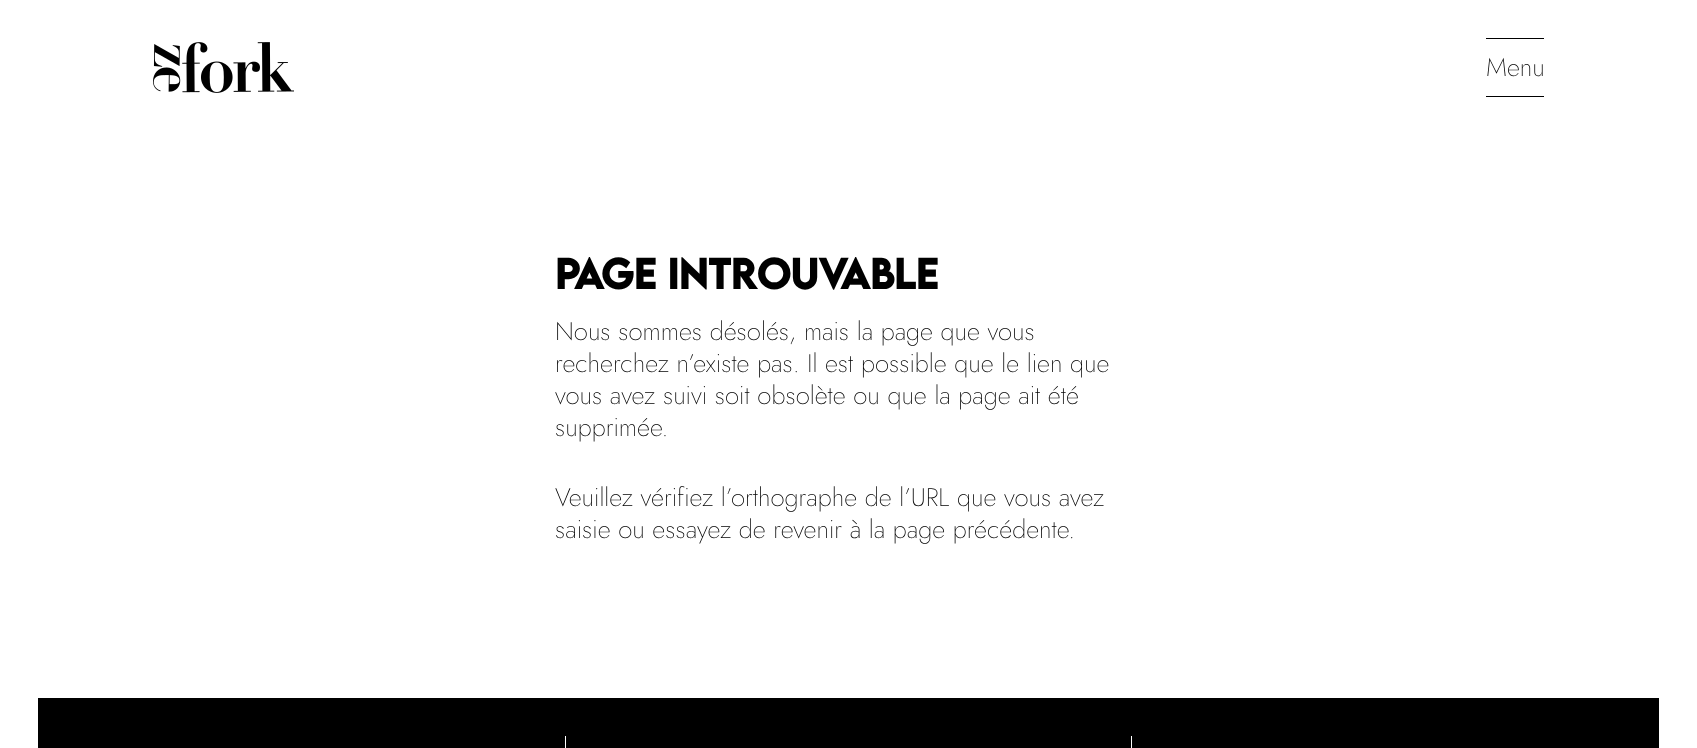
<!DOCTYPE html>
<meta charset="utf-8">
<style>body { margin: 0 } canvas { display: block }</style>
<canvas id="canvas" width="1697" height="748"></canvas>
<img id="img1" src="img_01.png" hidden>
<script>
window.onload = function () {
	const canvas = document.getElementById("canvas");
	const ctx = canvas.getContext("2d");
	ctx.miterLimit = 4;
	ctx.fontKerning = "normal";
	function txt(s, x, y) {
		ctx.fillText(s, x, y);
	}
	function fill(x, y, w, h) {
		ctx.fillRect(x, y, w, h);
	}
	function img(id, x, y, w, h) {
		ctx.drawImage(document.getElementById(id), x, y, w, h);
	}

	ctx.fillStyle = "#FFFFFF";
	fill(0, 0, 1697, 748);
	img("img1", 153, 42, 141, 51);
	ctx.fillStyle = "#000000";
	fill(1486, 38, 58, 1);
	fill(1486, 96, 58, 1);
	fill(38, 698, 1621, 50);
	ctx.fillStyle = "#FFFFFF";
	fill(1131, 736, 1, 12);
	fill(565, 736, 1, 12);
	ctx.font = "200 25.45px Jost";
	ctx.fillStyle = "#000000";
	txt("Menu", 1486, 76);
	ctx.font = "bold 38.25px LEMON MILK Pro";
	txt("PAGE INTROUVABLE", 555, 289);
	ctx.font = "200 25.45px Jost";
	txt("Nous sommes désolés, mais la page que vous", 555, 340);
	txt("recherchez n’existe pas. Il est possible que le lien que", 555, 372);
	txt("vous avez suivi soit obsolète ou que la page ait été", 555, 404);
	txt("supprimée.", 555, 436);
	txt("Veuillez vérifiez l’orthographe de l’URL que vous avez", 555, 506);
	txt("saisie ou essayez de revenir à la page précédente.", 555, 538);
};
</script>
